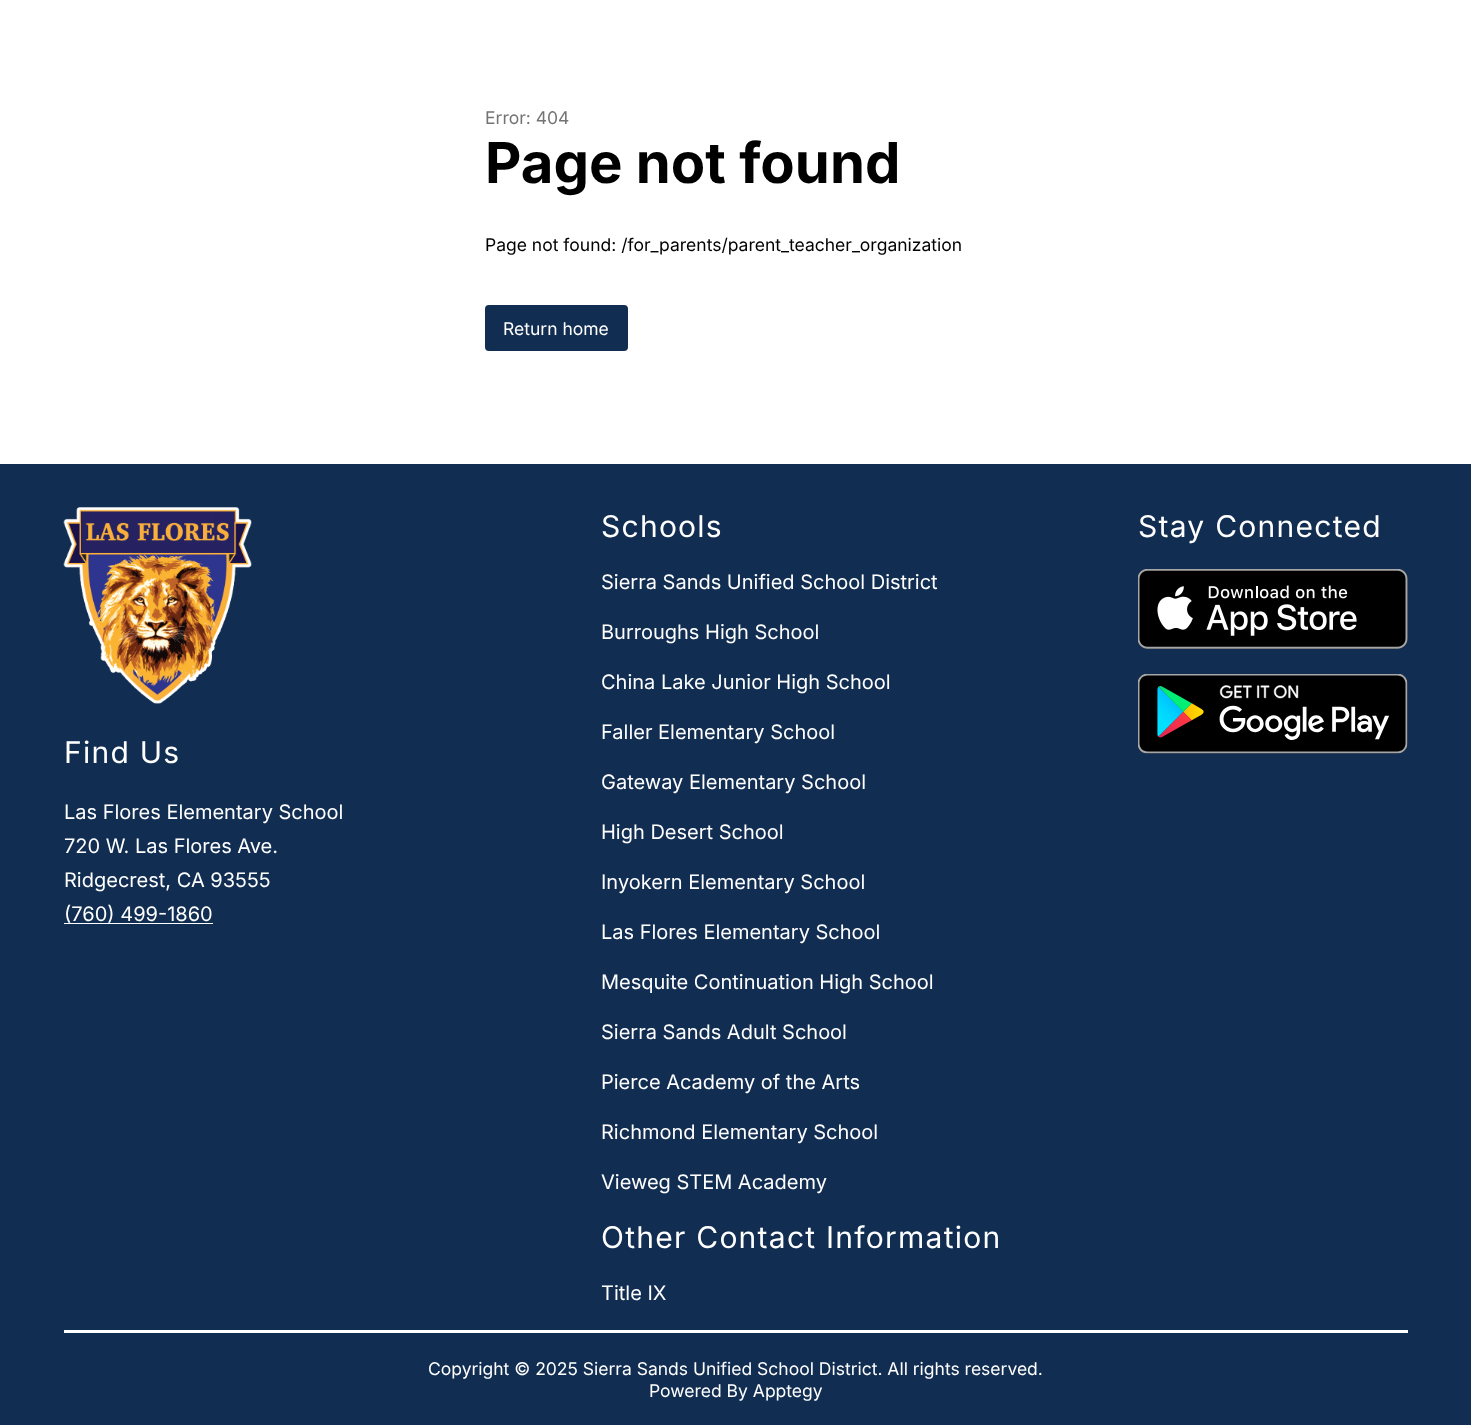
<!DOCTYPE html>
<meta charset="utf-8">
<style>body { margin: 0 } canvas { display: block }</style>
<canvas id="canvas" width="1471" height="1425"></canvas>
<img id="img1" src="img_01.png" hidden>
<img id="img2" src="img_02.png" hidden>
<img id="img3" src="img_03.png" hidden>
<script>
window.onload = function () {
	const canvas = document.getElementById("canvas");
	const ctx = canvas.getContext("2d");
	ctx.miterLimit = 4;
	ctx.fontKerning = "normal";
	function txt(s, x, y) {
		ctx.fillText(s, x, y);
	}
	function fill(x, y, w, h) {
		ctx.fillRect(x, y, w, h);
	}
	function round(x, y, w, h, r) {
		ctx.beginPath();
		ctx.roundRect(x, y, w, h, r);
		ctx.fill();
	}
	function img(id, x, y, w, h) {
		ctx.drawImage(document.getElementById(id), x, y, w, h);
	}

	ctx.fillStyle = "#FFFFFF";
	fill(0, 0, 1471, 1425);
	ctx.fillStyle = "#112D51";
	round(485, 305, 143, 46, 4);
	fill(0, 464, 1471, 961);
	img("img1", 1138, 569, 270, 80);
	img("img2", 1138, 674, 270, 80);
	img("img3", 63, 507, 189, 197);
	ctx.fillStyle = "#FFFFFF";
	fill(64, 923, 149, 1);
	fill(64, 1330, 1344, 3);
	ctx.font = "17.5px Inter";
	ctx.fillStyle = "#747474";
	txt("Error: 404", 485, 124);
	ctx.font = "bold 56.25px Inter";
	ctx.fillStyle = "#000000";
	txt("Page not found", 485, 183);
	ctx.font = "17.5px Inter";
	txt("Page not found: /for_parents/parent_teacher_organization", 485, 251);
	ctx.fillStyle = "#FFFFFF";
	txt("Return home", 503, 335);
	ctx.letterSpacing = "1.25px";
	ctx.font = "30px Inter";
	txt("Schools", 601, 537);
	ctx.letterSpacing = "0px";
	ctx.font = "20px Inter";
	txt("Sierra Sands Unified School District", 601, 589);
	txt("Burroughs High School", 601, 639);
	txt("China Lake Junior High School", 601, 689);
	txt("Faller Elementary School", 601, 739);
	txt("Gateway Elementary School", 601, 789);
	txt("High Desert School", 601, 839);
	txt("Inyokern Elementary School", 601, 889);
	txt("Las Flores Elementary School", 601, 939);
	txt("Mesquite Continuation High School", 601, 989);
	txt("Sierra Sands Adult School", 601, 1039);
	txt("Pierce Academy of the Arts", 601, 1089);
	txt("Richmond Elementary School", 601, 1139);
	txt("Vieweg STEM Academy", 601, 1189);
	ctx.letterSpacing = "1.25px";
	ctx.font = "30px Inter";
	txt("Other Contact Information", 601, 1248);
	ctx.letterSpacing = "0px";
	ctx.font = "20px Inter";
	txt("Title IX", 601, 1300);
	ctx.letterSpacing = "1.25px";
	ctx.font = "30px Inter";
	txt("Stay Connected", 1138, 537);
	txt("Find Us", 64, 763);
	ctx.letterSpacing = "0px";
	ctx.font = "20px Inter";
	txt("Las Flores Elementary School", 64, 819);
	txt("720 W. Las Flores Ave.", 64, 853);
	txt("Ridgecrest, CA 93555", 64, 887);
	txt("(760) 499-1860", 64, 921);
	ctx.font = "17.5px Inter";
	txt("Copyright © 2025 Sierra Sands Unified School District. All rights reserved.", 428, 1375);
	txt("Powered By Apptegy", 649, 1397);
};
</script>
